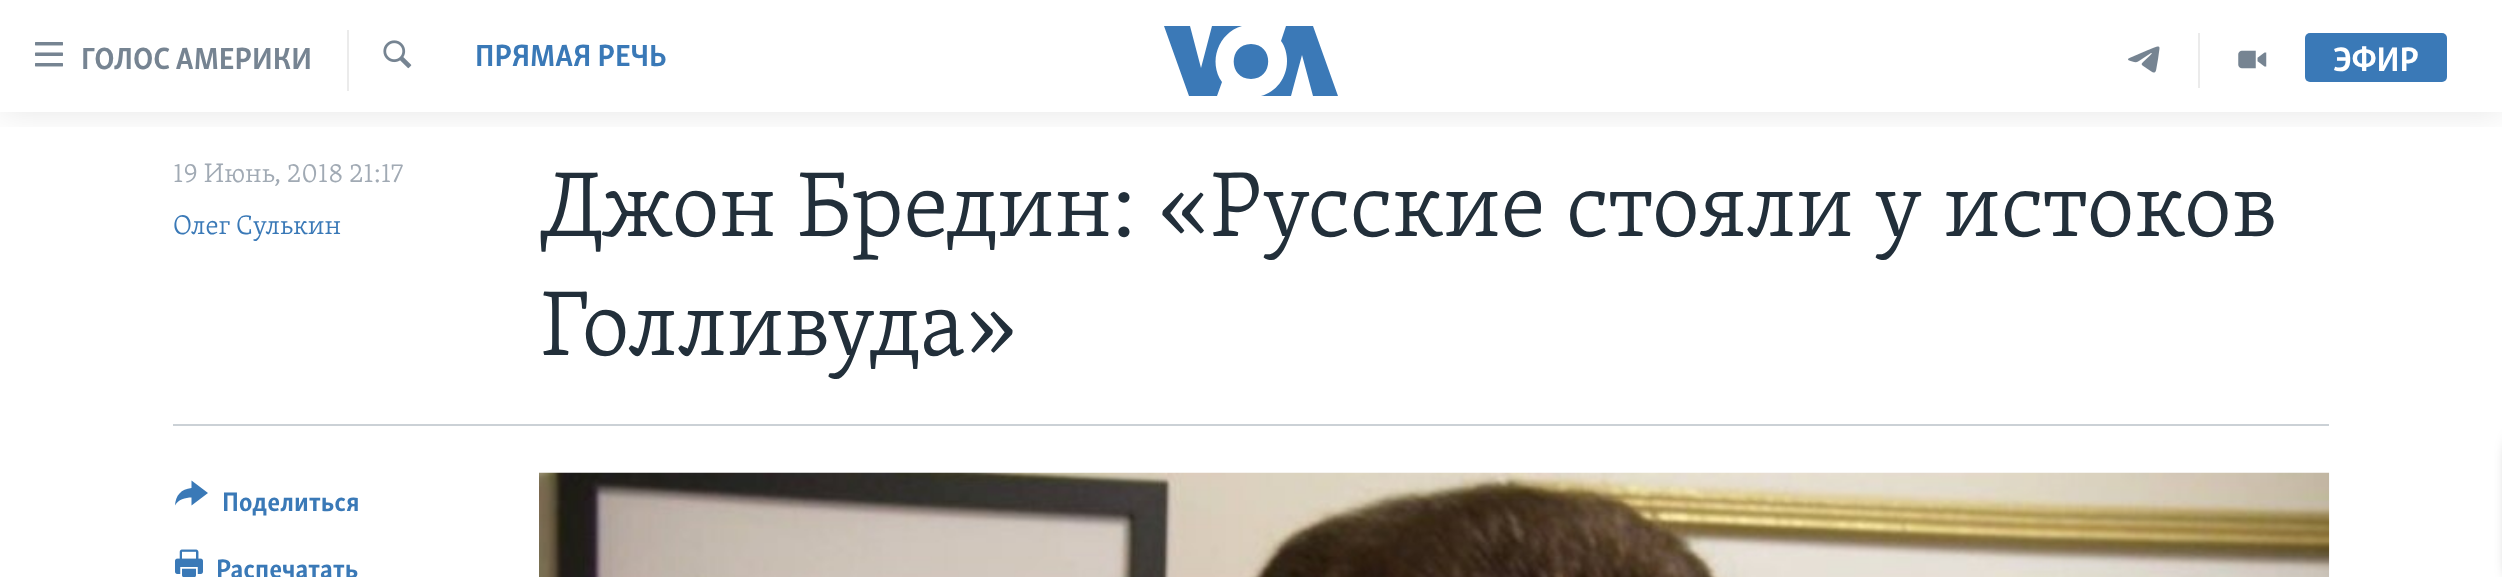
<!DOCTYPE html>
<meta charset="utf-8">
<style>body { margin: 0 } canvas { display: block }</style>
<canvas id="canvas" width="2502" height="577"></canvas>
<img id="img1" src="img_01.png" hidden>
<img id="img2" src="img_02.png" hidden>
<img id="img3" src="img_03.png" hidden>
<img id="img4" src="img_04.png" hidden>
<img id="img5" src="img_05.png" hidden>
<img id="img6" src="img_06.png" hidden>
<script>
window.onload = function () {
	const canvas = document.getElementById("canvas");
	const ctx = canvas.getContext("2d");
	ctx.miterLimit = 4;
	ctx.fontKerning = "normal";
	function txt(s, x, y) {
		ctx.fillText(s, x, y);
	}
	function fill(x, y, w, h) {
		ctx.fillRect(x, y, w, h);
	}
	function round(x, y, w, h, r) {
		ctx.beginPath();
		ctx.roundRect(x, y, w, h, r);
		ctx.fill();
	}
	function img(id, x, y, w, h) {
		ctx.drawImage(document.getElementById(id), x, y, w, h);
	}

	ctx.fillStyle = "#FFFFFF";
	fill(0, 0, 2502, 577);
	ctx.save();
	ctx.beginPath();
	ctx.rect(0, 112, 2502, 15);
	ctx.clip();
	ctx.fillStyle = "rgba(0, 0, 0, 0.1)";
	ctx.filter = "blur(17.5px)";
	ctx.beginPath();
	ctx.rect(0, 0, 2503, 112);
	ctx.fill();
	ctx.filter = "none";
	ctx.restore();
	img("img1", 35, 42, 28, 25);
	ctx.fillStyle = "#EBEBEB";
	fill(347, 30, 2, 61);
	img("img2", 383, 40, 29, 29);
	ctx.fillStyle = "#3B79B7";
	ctx.beginPath();
	ctx.moveTo(1222, 82);
	ctx.lineTo(1217, 96);
	ctx.lineTo(1189, 96);
	ctx.lineTo(1164, 26);
	ctx.lineTo(1190, 26);
	ctx.lineTo(1201, 68);
	ctx.lineTo(1212, 26);
	ctx.lineTo(1242, 26);
	ctx.bezierCurveTo(1218, 33, 1208, 62, 1222, 82);
	ctx.closePath();
	ctx.moveTo(1251, 44);
	ctx.bezierCurveTo(1228, 44, 1228, 79, 1251, 79);
	ctx.bezierCurveTo(1274, 79, 1274, 44, 1251, 44);
	ctx.closePath();
	ctx.moveTo(1287, 61);
	ctx.bezierCurveTo(1287, 78, 1276, 92, 1261, 96);
	ctx.lineTo(1291, 96);
	ctx.lineTo(1302, 55);
	ctx.lineTo(1313, 96);
	ctx.lineTo(1338, 96);
	ctx.lineTo(1313, 26);
	ctx.lineTo(1286, 26);
	ctx.lineTo(1281, 41);
	ctx.bezierCurveTo(1285, 46, 1287, 54, 1287, 61);
	ctx.closePath();
	ctx.fill();
	ctx.fillStyle = "#EBEBEB";
	fill(2198, 33, 2, 55);
	img("img3", 2128, 46, 32, 27);
	img("img4", 2238, 50, 29, 19);
	ctx.fillStyle = "#3A79B7";
	round(2305, 33, 142, 49, 5);
	ctx.fillStyle = "#CBD1D6";
	fill(173, 424, 2156, 2);
	ctx.fillStyle = "#3A79B7";
	ctx.beginPath();
	ctx.moveTo(175, 505.5);
	ctx.bezierCurveTo(175.5, 495.5, 181, 489, 191.5, 488);
	ctx.lineTo(191.5, 480.5);
	ctx.lineTo(208, 493);
	ctx.lineTo(191.5, 505.5);
	ctx.lineTo(191.5, 497.5);
	ctx.bezierCurveTo(185.5, 497.5, 178, 499.5, 175, 505.5);
	ctx.closePath();
	ctx.fill();
	img("img5", 175, 549, 28, 28);
	img("img6", 539, 472, 1791, 105);
	ctx.fillStyle = "rgba(0, 0, 0, 0.85)";
	ctx.filter = "blur(9px)";
	ctx.beginPath();
	ctx.roundRect(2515, 441, 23, 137, 9);
	ctx.fill();
	ctx.filter = "none";
	ctx.font = "bold 31.5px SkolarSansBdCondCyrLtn";
	ctx.fillStyle = "#768492";
	txt("ГОЛОС АМЕРИКИ", 81, 69);
	ctx.fillStyle = "#3A79B7";
	txt("ПРЯМАЯ РЕЧЬ", 475, 66);
	ctx.font = "bold 35px SkolarSansBdCondCyrLtn";
	ctx.fillStyle = "#FFFFFF";
	txt("ЭФИР", 2333, 71);
	ctx.font = "300 27.5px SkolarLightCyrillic";
	ctx.fillStyle = "#A1AAB4";
	txt("19 Июнь, 2018 21:17", 173, 182);
	ctx.fillStyle = "#3A79B7";
	txt("Олег Сулькин", 173, 234);
	ctx.font = "300 94.5px SkolarLightCyrillic";
	ctx.fillStyle = "#222F3A";
	txt("Джон Бредин: «Русские стояли у истоков", 540, 236);
	txt("Голливуда»", 540, 355);
	ctx.font = "bold 27.5px SkolarSansBdCondCyrLtn";
	ctx.fillStyle = "#3A79B7";
	txt("Поделиться", 222, 511);
	txt("Распечатать", 216, 578);
};
</script>
